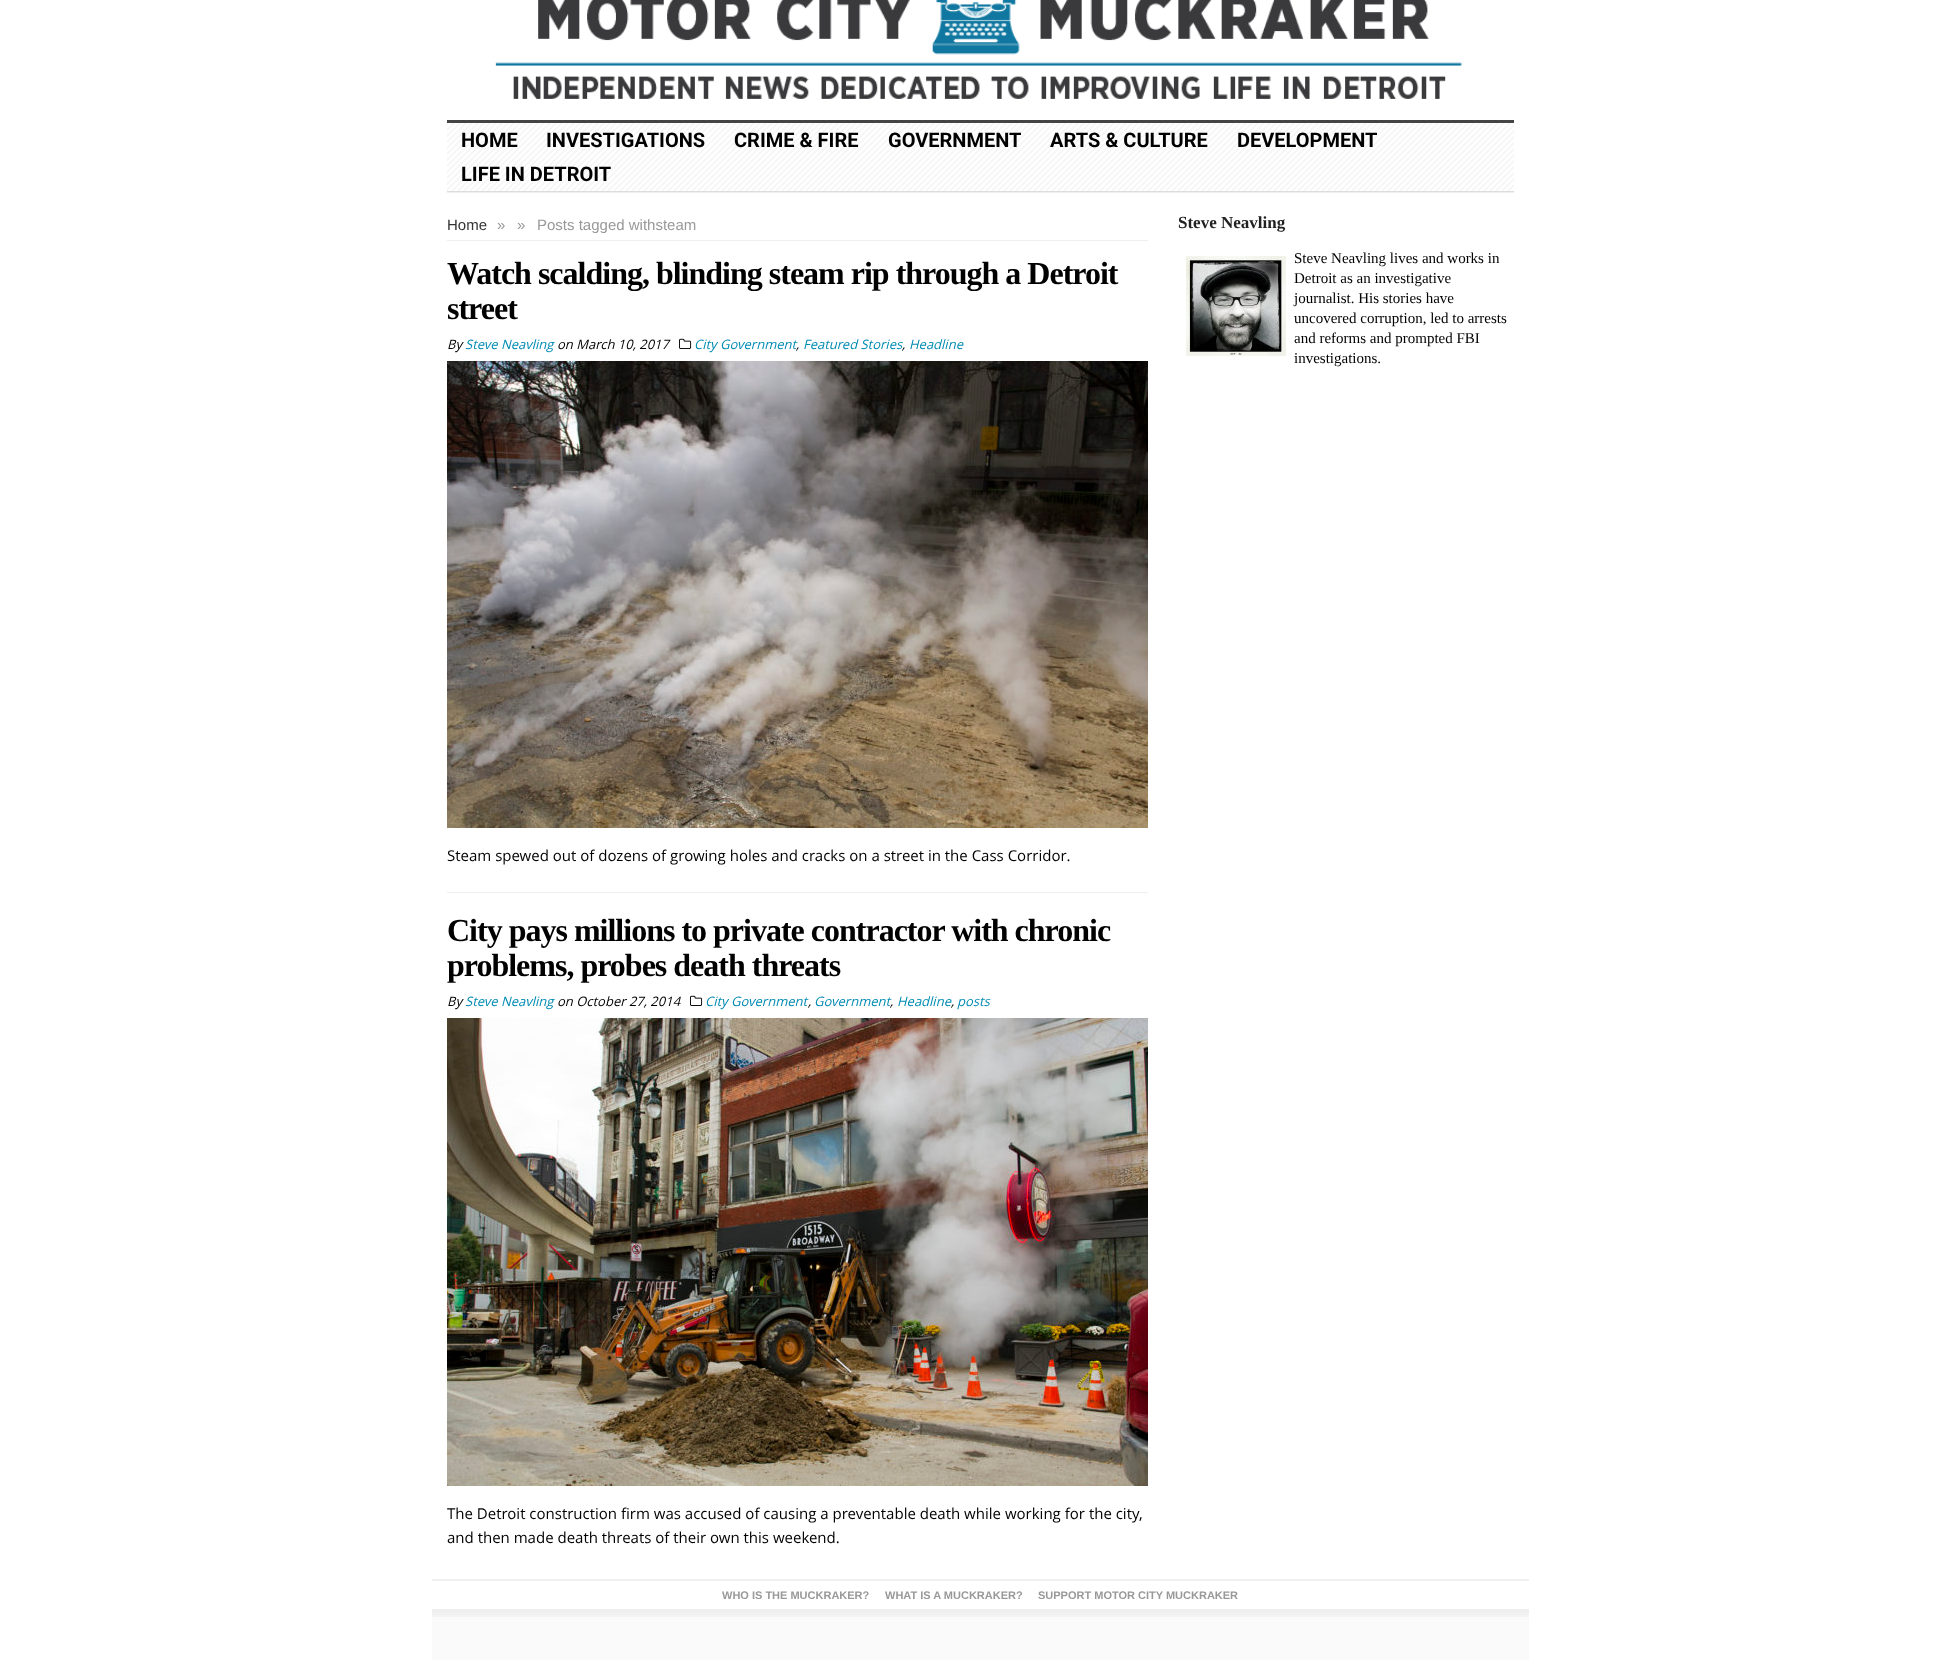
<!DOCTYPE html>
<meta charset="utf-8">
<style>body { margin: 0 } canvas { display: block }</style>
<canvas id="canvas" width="1960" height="1660"></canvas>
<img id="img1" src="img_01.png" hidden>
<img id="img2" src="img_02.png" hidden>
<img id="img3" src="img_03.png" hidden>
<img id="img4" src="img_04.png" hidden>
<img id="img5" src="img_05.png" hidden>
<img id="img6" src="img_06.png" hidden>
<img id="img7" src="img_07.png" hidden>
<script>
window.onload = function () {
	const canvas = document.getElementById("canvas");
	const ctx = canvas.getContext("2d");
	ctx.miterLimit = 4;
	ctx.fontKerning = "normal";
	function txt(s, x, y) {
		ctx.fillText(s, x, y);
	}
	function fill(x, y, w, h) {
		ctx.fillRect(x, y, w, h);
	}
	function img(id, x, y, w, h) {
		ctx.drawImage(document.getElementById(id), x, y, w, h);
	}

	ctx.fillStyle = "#FFFFFF";
	fill(0, 0, 1960, 1660);
	ctx.fillStyle = "#444444";
	fill(447, 120, 1067, 3);
	img("img1", 495, 0, 967, 99);
	img("img2", 447, 123, 1067, 68);
	ctx.fillStyle = "#DDDDDD";
	fill(447, 191, 1067, 1);
	ctx.fillStyle = "#EFEFEF";
	fill(447, 192, 1067, 1);
	fill(447, 240, 701, 1);
	fill(447, 892, 701, 1);
	img("img3", 679, 338, 13, 11);
	img("img4", 447, 361, 701, 467);
	img("img3", 690, 995, 13, 11);
	img("img5", 447, 1018, 701, 468);
	img("img6", 1186, 256, 100, 100);
	fill(432, 1579, 1097, 2);
	fill(432, 1609, 1097, 2);
	ctx.fillStyle = "#FAFAFA";
	fill(432, 1611, 1097, 49);
	img("img7", 432, 1611, 1097, 6);
	ctx.font = "bold 20px Roboto";
	ctx.fillStyle = "#000000";
	txt("HOME", 461, 147);
	txt("INVESTIGATIONS", 546, 147);
	txt("CRIME & FIRE", 734, 147);
	txt("GOVERNMENT", 888, 147);
	txt("ARTS & CULTURE", 1050, 147);
	txt("DEVELOPMENT", 1237, 147);
	txt("LIFE IN DETROIT", 461, 181);
	ctx.font = "15px Liberation Sans";
	ctx.fillStyle = "#333333";
	txt("Home", 447, 230);
	ctx.fillStyle = "#999999";
	txt("»", 497, 230);
	txt("»", 517, 230);
	txt("Posts tagged withsteam", 537, 230);
	ctx.letterSpacing = "-1px";
	ctx.font = "bold 32px Liberation Serif";
	ctx.fillStyle = "#000000";
	txt("Watch scalding, blinding steam rip through a Detroit", 447, 284);
	txt("street", 447, 319);
	ctx.letterSpacing = "0px";
	ctx.font = "italic 13px Open Sans";
	txt("By", 447, 349);
	ctx.fillStyle = "#008BB3";
	txt("Steve Neavling", 465, 349);
	ctx.fillStyle = "#000000";
	txt("on March 10, 2017", 557, 349);
	ctx.fillStyle = "#008BB3";
	txt("City Government", 694, 349);
	txt("Featured Stories", 803, 349);
	txt("Headline", 909, 349);
	ctx.fillStyle = "#000000";
	txt(",", 796, 349);
	txt(",", 902, 349);
	ctx.font = "15px Open Sans";
	txt("Steam spewed out of dozens of growing holes and cracks on a street in the Cass Corridor.", 447, 861);
	ctx.letterSpacing = "-1px";
	ctx.font = "bold 32px Liberation Serif";
	txt("City pays millions to private contractor with chronic", 447, 941);
	txt("problems, probes death threats", 447, 976);
	ctx.letterSpacing = "0px";
	ctx.font = "italic 13px Open Sans";
	txt("By", 447, 1006);
	ctx.fillStyle = "#008BB3";
	txt("Steve Neavling", 465, 1006);
	ctx.fillStyle = "#000000";
	txt("on October 27, 2014", 557, 1006);
	ctx.fillStyle = "#008BB3";
	txt("City Government", 705, 1006);
	txt("Government", 814, 1006);
	txt("Headline", 897, 1006);
	txt("posts", 957, 1006);
	ctx.fillStyle = "#000000";
	txt(",", 808, 1006);
	txt(",", 890, 1006);
	txt(",", 951, 1006);
	ctx.font = "15px Open Sans";
	txt("The Detroit construction firm was accused of causing a preventable death while working for the city,", 447, 1519);
	txt("and then made death threats of their own this weekend.", 447, 1543);
	ctx.font = "bold 17px Liberation Serif";
	ctx.fillStyle = "#222222";
	txt("Steve Neavling", 1178, 228);
	ctx.font = "15px Liberation Serif";
	ctx.fillStyle = "#000000";
	txt("Steve Neavling lives and works in", 1294, 263);
	txt("Detroit as an investigative", 1294, 283);
	txt("journalist. His stories have", 1294, 303);
	txt("uncovered corruption, led to arrests", 1294, 323);
	txt("and reforms and prompted FBI", 1294, 343);
	txt("investigations.", 1294, 363);
	ctx.font = "bold 11px Liberation Sans";
	ctx.fillStyle = "#999999";
	txt("WHO IS THE MUCKRAKER?", 722, 1599);
	txt("WHAT IS A MUCKRAKER?", 885, 1599);
	txt("SUPPORT MOTOR CITY MUCKRAKER", 1038, 1599);
};
</script>
